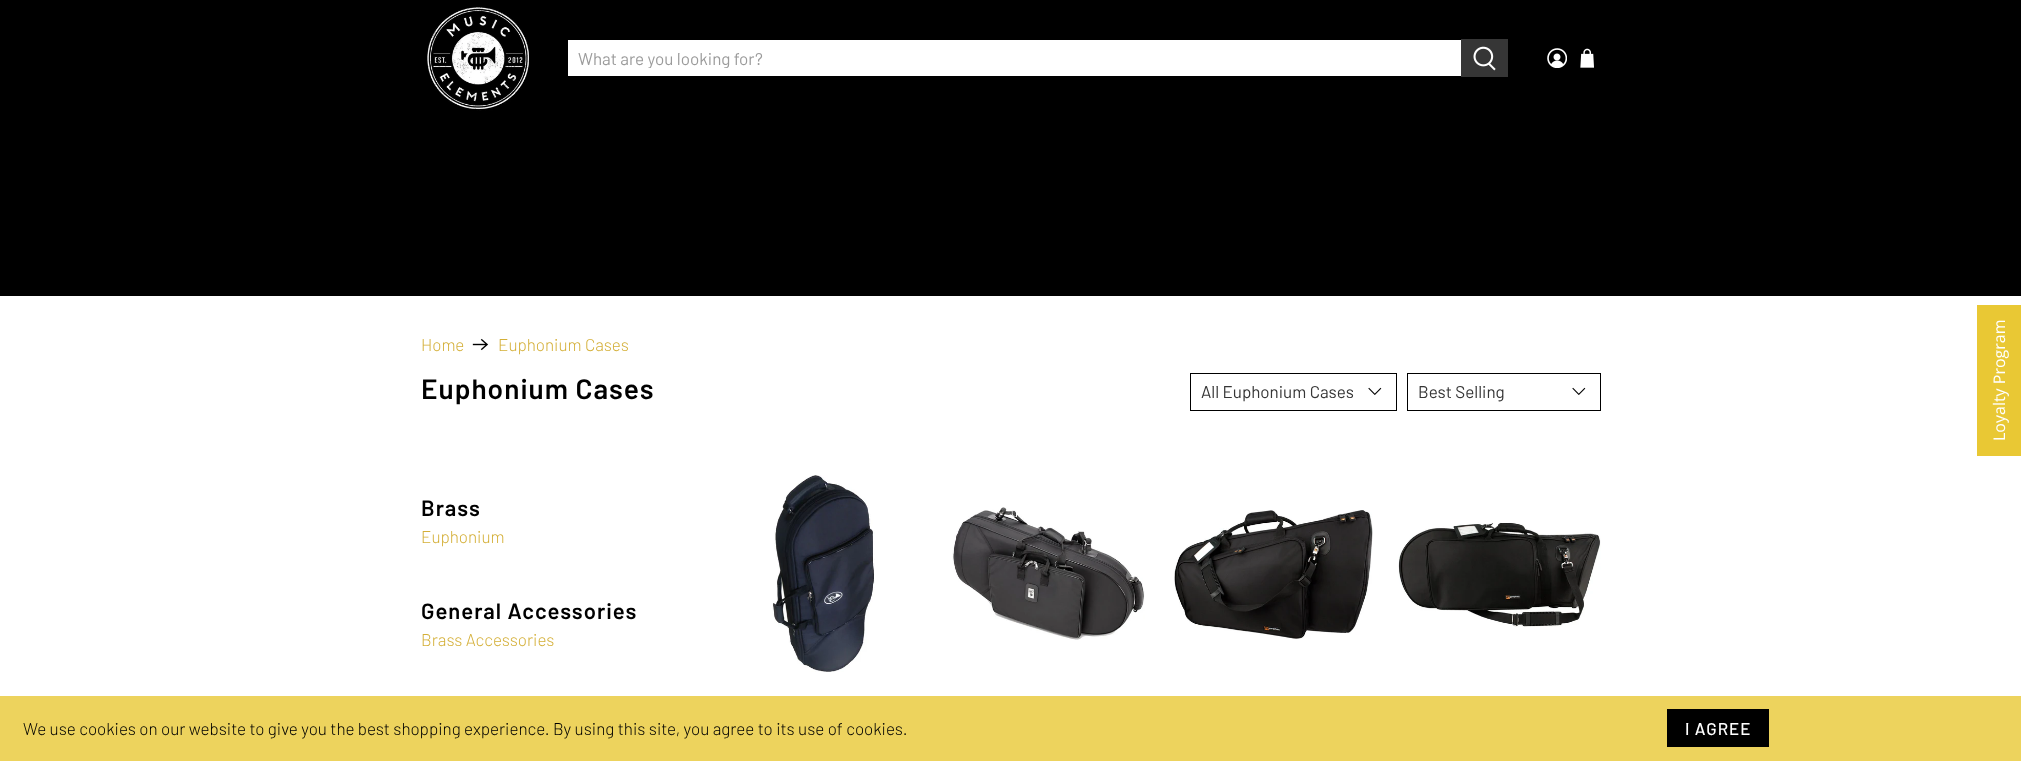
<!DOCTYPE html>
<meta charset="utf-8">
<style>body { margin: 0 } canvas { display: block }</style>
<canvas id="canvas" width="2021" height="761"></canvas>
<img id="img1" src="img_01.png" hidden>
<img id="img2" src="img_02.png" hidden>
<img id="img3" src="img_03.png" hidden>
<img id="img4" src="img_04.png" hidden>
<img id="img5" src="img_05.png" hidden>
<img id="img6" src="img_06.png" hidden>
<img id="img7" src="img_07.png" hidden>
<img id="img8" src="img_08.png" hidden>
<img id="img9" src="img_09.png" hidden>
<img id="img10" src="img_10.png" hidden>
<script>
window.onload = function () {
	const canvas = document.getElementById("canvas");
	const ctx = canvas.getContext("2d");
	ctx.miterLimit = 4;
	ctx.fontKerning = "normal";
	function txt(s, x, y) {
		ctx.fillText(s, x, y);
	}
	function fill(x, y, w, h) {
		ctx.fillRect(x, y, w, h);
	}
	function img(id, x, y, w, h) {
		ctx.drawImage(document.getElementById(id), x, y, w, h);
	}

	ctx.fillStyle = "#FFFFFF";
	fill(0, 0, 2021, 761);
	ctx.fillStyle = "#000000";
	fill(0, 0, 2021, 296);
	img("img1", 427, 7, 102, 104);
	ctx.fillStyle = "#FFFFFF";
	fill(568, 40, 893, 36);
	ctx.fillStyle = "#363636";
	fill(1461, 39, 47, 38);
	img("img2", 1473, 46, 23, 25);
	img("img3", 1547, 48, 20, 20);
	img("img4", 1580, 48, 14, 20);
	img("img5", 472, 338, 17, 13);
	ctx.strokeStyle = "#000000";
	ctx.strokeRect(1190.5, 373.5, 206, 37);
	img("img6", 1368, 387, 14, 8);
	ctx.strokeRect(1407.5, 373.5, 193, 37);
	img("img6", 1572, 387, 14, 8);
	img("img7", 772, 475, 103, 197);
	img("img8", 952, 507, 193, 133);
	img("img9", 1174, 510, 199, 129);
	img("img10", 1398, 522, 203, 105);
	ctx.fillStyle = "#E9C834";
	fill(1977, 305, 44, 151);
	ctx.fillStyle = "rgba(233, 200, 52, 0.8)";
	fill(0, 696, 2021, 65);
	ctx.fillStyle = "#000000";
	fill(1667, 709, 102, 38);
	ctx.save();
	ctx.beginPath();
	ctx.rect(578, 48, 874, 20);
	ctx.clip();
	ctx.font = "17px Barlow";
	ctx.fillStyle = "#9B9B9B";
	txt("What are you looking for?", 578, 65);
	ctx.restore();
	ctx.font = "300 17px Barlow";
	ctx.fillStyle = "#D4AF37";
	txt("Home", 421, 351);
	txt("Euphonium Cases", 498, 351);
	ctx.letterSpacing = "1px";
	ctx.font = "600 28px Barlow";
	ctx.fillStyle = "#000000";
	txt("Euphonium Cases", 421, 399);
	ctx.letterSpacing = "0px";
	ctx.font = "17px Barlow";
	ctx.fillStyle = "#363636";
	txt("All Euphonium Cases", 1201, 398);
	txt("Best Selling", 1418, 398);
	ctx.letterSpacing = "1px";
	ctx.font = "600 22px Barlow";
	ctx.fillStyle = "#000000";
	txt("Brass", 421, 516);
	ctx.letterSpacing = "0px";
	ctx.font = "300 17px Barlow";
	ctx.fillStyle = "#D4AF37";
	txt("Euphonium", 421, 543);
	ctx.letterSpacing = "1px";
	ctx.font = "600 22px Barlow";
	ctx.fillStyle = "#000000";
	txt("General Accessories", 421, 619);
	ctx.letterSpacing = "0px";
	ctx.font = "300 17px Barlow";
	ctx.fillStyle = "#D4AF37";
	txt("Brass Accessories", 421, 646);
	ctx.font = "16px Open Sans";
	ctx.fillStyle = "#FFFFFF";
	ctx.save();
	ctx.translate(2005, 441);
	ctx.rotate(-90 * Math.PI / 180);
	ctx.fillText("Loyalty Program", 0, 0);
	ctx.restore();
	ctx.font = "300 17px Barlow";
	ctx.fillStyle = "#000000";
	txt("We use cookies on our website to give you the best shopping experience. By using this site, you agree to its use of cookies.", 23, 735);
	ctx.letterSpacing = "1px";
	ctx.font = "500 17px Barlow";
	ctx.fillStyle = "#FFFFFF";
	txt("I AGREE", 1685, 735);
};
</script>
